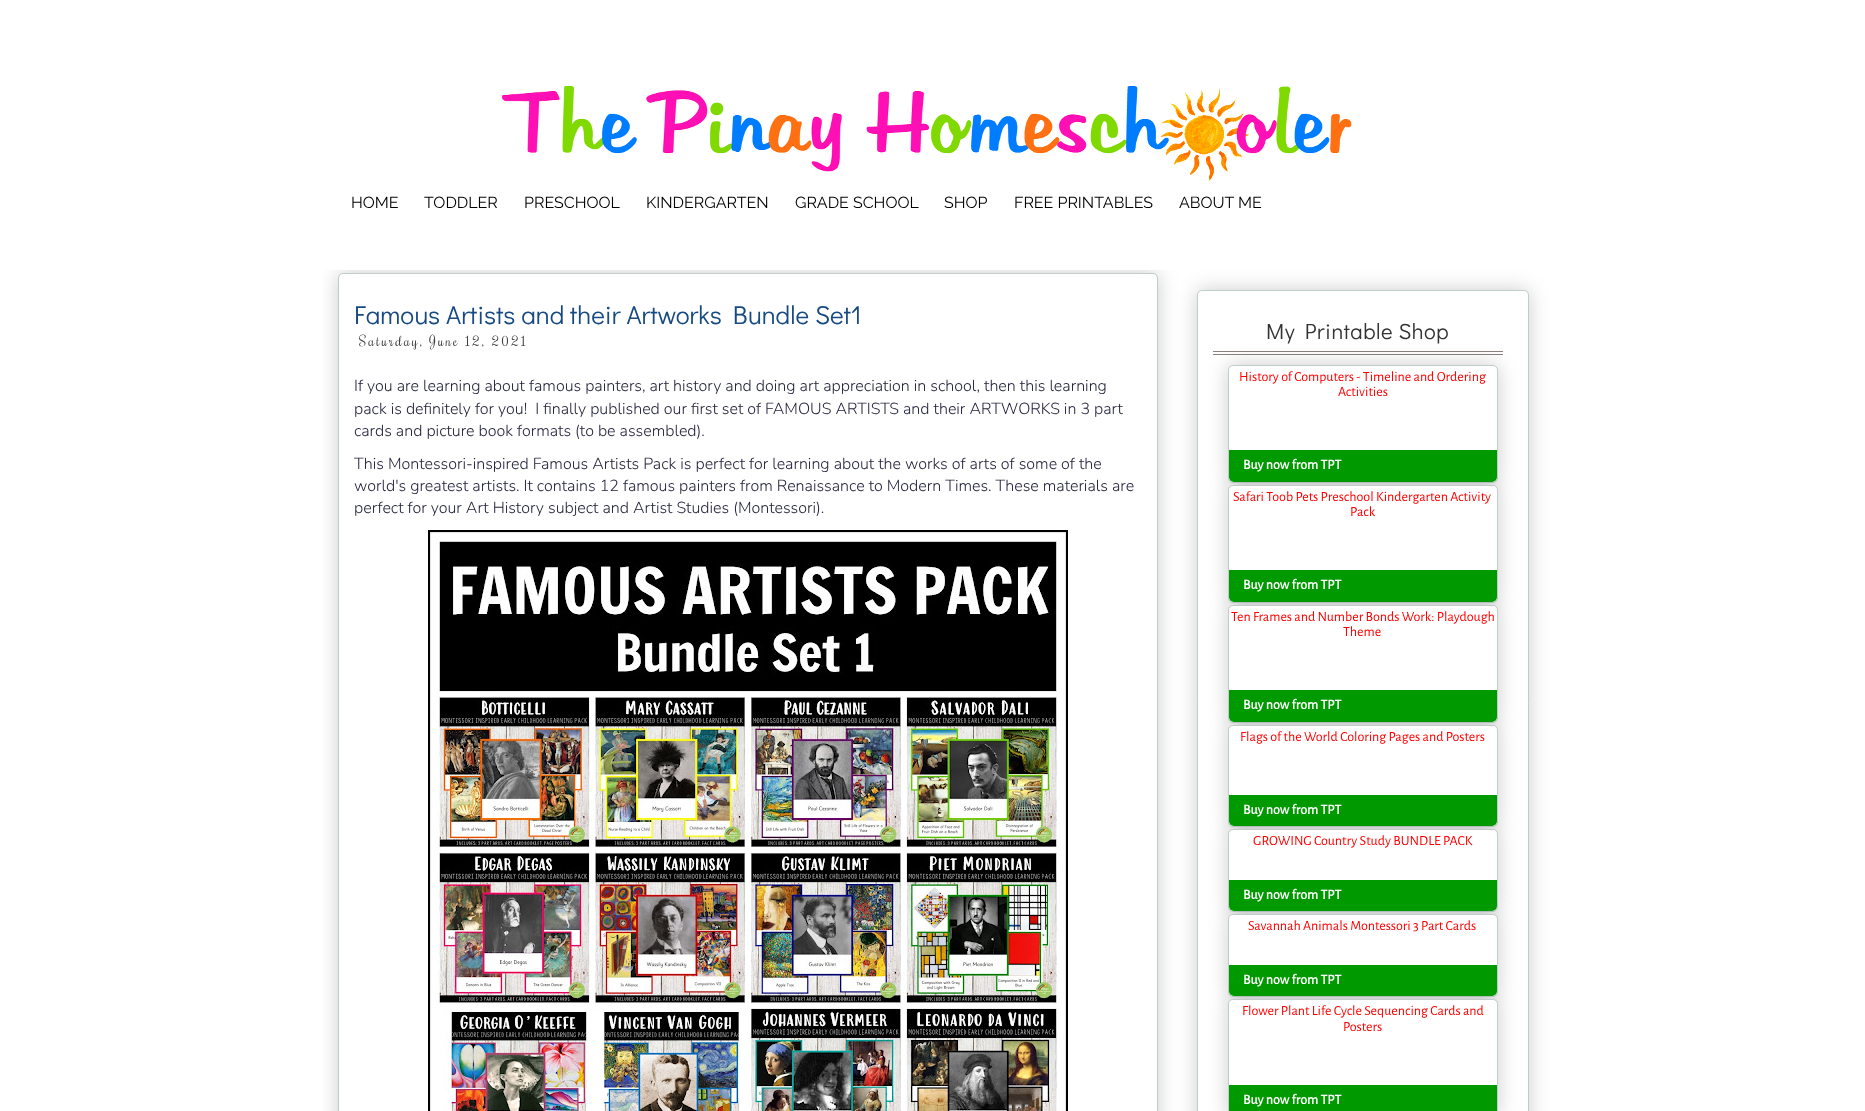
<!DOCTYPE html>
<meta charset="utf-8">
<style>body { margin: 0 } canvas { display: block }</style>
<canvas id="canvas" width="1865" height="1111"></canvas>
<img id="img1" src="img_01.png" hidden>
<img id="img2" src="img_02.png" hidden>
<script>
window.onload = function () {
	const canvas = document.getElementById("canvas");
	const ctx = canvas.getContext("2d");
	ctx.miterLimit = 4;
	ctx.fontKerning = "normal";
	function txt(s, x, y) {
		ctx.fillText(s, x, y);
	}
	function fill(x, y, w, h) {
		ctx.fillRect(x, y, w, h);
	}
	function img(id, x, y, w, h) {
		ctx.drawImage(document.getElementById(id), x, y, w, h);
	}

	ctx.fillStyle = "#FFFFFF";
	fill(0, 0, 1865, 1111);
	img("img1", 501, 86, 851, 95);
	ctx.save();
	ctx.beginPath();
	ctx.rect(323, 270, 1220, 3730);
	ctx.clip();
	ctx.fillStyle = "rgba(0, 0, 0, 0.2)";
	ctx.filter = "blur(10px)";
	ctx.beginPath();
	ctx.roundRect(338, 273, 820, 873, 5);
	ctx.fill();
	ctx.filter = "none";
	ctx.restore();
	ctx.beginPath();
	ctx.roundRect(338.5, 273.5, 819, 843, 4.5);
	ctx.fill();
	ctx.strokeStyle = "#C1CDCD";
	ctx.stroke();
	img("img2", 428, 530, 640, 581);
	ctx.fillStyle = "rgba(0, 0, 0, 0.2)";
	ctx.filter = "blur(10px)";
	ctx.beginPath();
	ctx.roundRect(1197, 290, 332, 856, 5);
	ctx.fill();
	ctx.filter = "none";
	ctx.fillStyle = "#FFFFFF";
	ctx.beginPath();
	ctx.roundRect(1197.5, 290.5, 331, 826, 4.5);
	ctx.fill();
	ctx.stroke();
	ctx.fillStyle = "#8B817E";
	fill(1213, 351, 290, 1);
	fill(1213, 354, 290, 1);
	ctx.fillStyle = "rgba(0, 0, 0, 0.2)";
	ctx.filter = "blur(10px)";
	ctx.beginPath();
	ctx.roundRect(1228, 365, 270, 118, 5);
	ctx.fill();
	ctx.filter = "none";
	ctx.fillStyle = "#FFFFFF";
	ctx.beginPath();
	ctx.roundRect(1228.5, 365.5, 269, 117, 4.5);
	ctx.fill();
	ctx.stroke();
	ctx.fillStyle = "rgba(0, 0, 0, 0.2)";
	ctx.filter = "blur(10px)";
	ctx.beginPath();
	ctx.roundRect(1228, 485, 270, 118, 5);
	ctx.fill();
	ctx.filter = "none";
	ctx.fillStyle = "#009900";
	ctx.beginPath();
	ctx.roundRect(1229, 450, 268, 32, [0, 0, 5, 5]);
	ctx.fill();
	ctx.fillStyle = "#FFFFFF";
	ctx.beginPath();
	ctx.roundRect(1228.5, 485.5, 269, 117, 4.5);
	ctx.fill();
	ctx.stroke();
	ctx.fillStyle = "rgba(0, 0, 0, 0.2)";
	ctx.filter = "blur(10px)";
	ctx.beginPath();
	ctx.roundRect(1228, 605, 270, 118, 5);
	ctx.fill();
	ctx.filter = "none";
	ctx.fillStyle = "#009900";
	ctx.beginPath();
	ctx.roundRect(1229, 570, 268, 32, [0, 0, 5, 5]);
	ctx.fill();
	ctx.fillStyle = "#FFFFFF";
	ctx.beginPath();
	ctx.roundRect(1228.5, 605.5, 269, 117, 4.5);
	ctx.fill();
	ctx.stroke();
	ctx.fillStyle = "rgba(0, 0, 0, 0.2)";
	ctx.filter = "blur(10px)";
	ctx.beginPath();
	ctx.roundRect(1228, 725, 270, 102, 5);
	ctx.fill();
	ctx.filter = "none";
	ctx.fillStyle = "#009900";
	ctx.beginPath();
	ctx.roundRect(1229, 690, 268, 32, [0, 0, 5, 5]);
	ctx.fill();
	ctx.fillStyle = "#FFFFFF";
	ctx.beginPath();
	ctx.roundRect(1228.5, 725.5, 269, 101, 4.5);
	ctx.fill();
	ctx.stroke();
	ctx.fillStyle = "rgba(0, 0, 0, 0.2)";
	ctx.filter = "blur(10px)";
	ctx.beginPath();
	ctx.roundRect(1228, 829, 270, 83, 5);
	ctx.fill();
	ctx.filter = "none";
	ctx.fillStyle = "#009900";
	ctx.beginPath();
	ctx.roundRect(1229, 795, 268, 31, [0, 0, 5, 5]);
	ctx.fill();
	ctx.fillStyle = "#FFFFFF";
	ctx.beginPath();
	ctx.roundRect(1228.5, 829.5, 269, 82, 4.5);
	ctx.fill();
	ctx.stroke();
	ctx.fillStyle = "rgba(0, 0, 0, 0.2)";
	ctx.filter = "blur(10px)";
	ctx.beginPath();
	ctx.roundRect(1228, 914, 270, 83, 5);
	ctx.fill();
	ctx.filter = "none";
	ctx.fillStyle = "#009900";
	ctx.beginPath();
	ctx.roundRect(1229, 880, 268, 31, [0, 0, 5, 5]);
	ctx.fill();
	ctx.fillStyle = "#FFFFFF";
	ctx.beginPath();
	ctx.roundRect(1228.5, 914.5, 269, 82, 4.5);
	ctx.fill();
	ctx.stroke();
	ctx.fillStyle = "rgba(0, 0, 0, 0.2)";
	ctx.filter = "blur(10px)";
	ctx.beginPath();
	ctx.roundRect(1228, 999, 270, 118, 5);
	ctx.fill();
	ctx.filter = "none";
	ctx.fillStyle = "#009900";
	ctx.beginPath();
	ctx.roundRect(1229, 965, 268, 31, [0, 0, 5, 5]);
	ctx.fill();
	ctx.fillStyle = "#FFFFFF";
	ctx.beginPath();
	ctx.roundRect(1228.5, 999.5, 269, 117, 4.5);
	ctx.fill();
	ctx.stroke();
	ctx.fillStyle = "#009900";
	fill(1229, 1085, 268, 26);
	ctx.font = "100 16px Raleway";
	ctx.fillStyle = "#000000";
	txt("HOME", 351, 208);
	txt("TODDLER", 424, 208);
	txt("PRESCHOOL", 524, 208);
	txt("KINDERGARTEN", 646, 208);
	txt("GRADE SCHOOL", 795, 208);
	txt("SHOP", 944, 208);
	txt("FREE PRINTABLES", 1014, 208);
	txt("ABOUT ME", 1179, 208);
	ctx.font = "26px Didact Gothic";
	ctx.fillStyle = "#174A82";
	txt("Famous Artists and their Artworks Bundle Set1", 354, 324);
	ctx.letterSpacing = "2px";
	ctx.font = "14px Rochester";
	ctx.fillStyle = "#424242";
	txt("Saturday, June 12, 2021", 359, 346);
	ctx.letterSpacing = "0px";
	ctx.font = "200 16px Nunito";
	ctx.fillStyle = "#25253D";
	txt("If you are learning about famous painters, art history and doing art appreciation in school, then this learning", 354, 391);
	txt("pack is definitely for you!  I finally published our first set of FAMOUS ARTISTS and their ARTWORKS in 3 part", 354, 414);
	txt("cards and picture book formats (to be assembled).", 354, 436);
	txt("This Montessori-inspired Famous Artists Pack is perfect for learning about the works of arts of some of the", 354, 469);
	txt("world's greatest artists. It contains 12 famous painters from Renaissance to Modern Times. These materials are", 354, 491);
	txt("perfect for your Art History subject and Artist Studies (Montessori).", 354, 513);
	ctx.letterSpacing = "0.5px";
	ctx.font = "22px Didact Gothic";
	ctx.fillStyle = "#333333";
	txt("My Printable Shop", 1266, 339);
	ctx.letterSpacing = "0px";
	ctx.font = "14px Alegreya Sans";
	ctx.fillStyle = "#FF0000";
	txt("History of Computers - Timeline and Ordering", 1239, 381);
	txt("Activities", 1338, 396);
	ctx.font = "bold 14px Alegreya Sans";
	ctx.fillStyle = "#FFFFFF";
	txt("Buy now from TPT", 1243, 469);
	ctx.font = "14px Alegreya Sans";
	ctx.fillStyle = "#FF0000";
	txt("Safari Toob Pets Preschool Kindergarten Activity", 1233, 501);
	txt("Pack", 1350, 516);
	ctx.font = "bold 14px Alegreya Sans";
	ctx.fillStyle = "#FFFFFF";
	txt("Buy now from TPT", 1243, 589);
	ctx.font = "14px Alegreya Sans";
	ctx.fillStyle = "#FF0000";
	txt("Ten Frames and Number Bonds Work: Playdough", 1231, 621);
	txt("Theme", 1343, 636);
	ctx.font = "bold 14px Alegreya Sans";
	ctx.fillStyle = "#FFFFFF";
	txt("Buy now from TPT", 1243, 709);
	ctx.font = "14px Alegreya Sans";
	ctx.fillStyle = "#FF0000";
	txt("Flags of the World Coloring Pages and Posters", 1240, 741);
	ctx.font = "bold 14px Alegreya Sans";
	ctx.fillStyle = "#FFFFFF";
	txt("Buy now from TPT", 1243, 814);
	ctx.font = "14px Alegreya Sans";
	ctx.fillStyle = "#FF0000";
	txt("GROWING Country Study BUNDLE PACK", 1253, 845);
	ctx.font = "bold 14px Alegreya Sans";
	ctx.fillStyle = "#FFFFFF";
	txt("Buy now from TPT", 1243, 899);
	ctx.font = "14px Alegreya Sans";
	ctx.fillStyle = "#FF0000";
	txt("Savannah Animals Montessori 3 Part Cards", 1248, 930);
	ctx.font = "bold 14px Alegreya Sans";
	ctx.fillStyle = "#FFFFFF";
	txt("Buy now from TPT", 1243, 984);
	ctx.font = "14px Alegreya Sans";
	ctx.fillStyle = "#FF0000";
	txt("Flower Plant Life Cycle Sequencing Cards and", 1242, 1015);
	txt("Posters", 1343, 1031);
	ctx.font = "bold 14px Alegreya Sans";
	ctx.fillStyle = "#FFFFFF";
	txt("Buy now from TPT", 1243, 1104);
};
</script>
